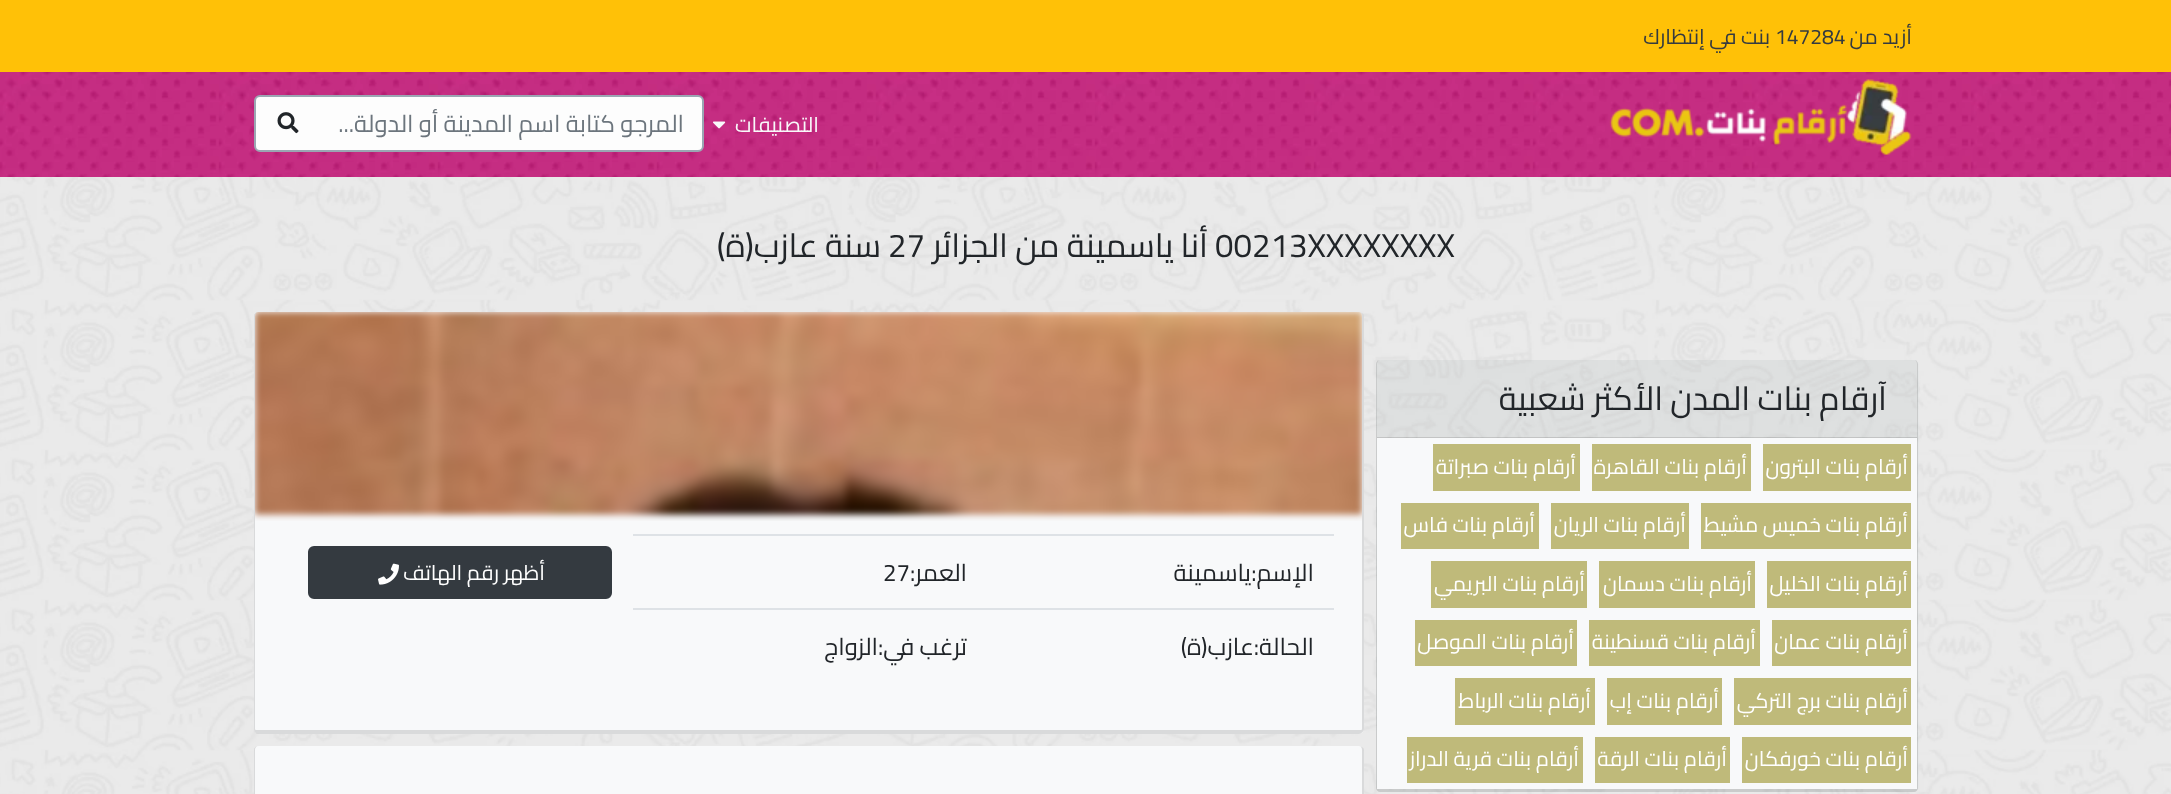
<!DOCTYPE html>
<meta charset="utf-8">
<style>body { margin: 0 } canvas { display: block }</style>
<canvas id="canvas" width="2171" height="794"></canvas>
<img id="img1" src="img_01.png" hidden>
<img id="img2" src="img_02.png" hidden>
<img id="img3" src="img_03.png" hidden>
<img id="img4" src="img_04.png" hidden>
<img id="img5" src="img_05.png" hidden>
<img id="img6" src="img_06.png" hidden>
<img id="img7" src="img_07.png" hidden>
<script>
window.onload = function () {
	const canvas = document.getElementById("canvas");
	const ctx = canvas.getContext("2d");
	ctx.miterLimit = 4;
	ctx.fontKerning = "normal";
	function txt(s, x, y) {
		ctx.fillText(s, x, y);
	}
	function fill(x, y, w, h) {
		ctx.fillRect(x, y, w, h);
	}
	function round(x, y, w, h, r) {
		ctx.beginPath();
		ctx.roundRect(x, y, w, h, r);
		ctx.fill();
	}
	function img(id, x, y, w, h) {
		ctx.drawImage(document.getElementById(id), x, y, w, h);
	}

	ctx.fillStyle = "#E2E2E2";
	fill(0, 0, 2171, 794);
	img("img1", 0, 177, 2171, 617);
	ctx.fillStyle = "#FFC107";
	fill(0, 0, 2171, 72);
	img("img2", 0, 72, 2171, 105);
	img("img3", 1609, 79, 303, 76);
	img("img4", 713, 121, 13, 8);
	ctx.fillStyle = "#FDFDFD";
	ctx.beginPath();
	ctx.roundRect(255, 96, 448, 55, 5);
	ctx.fill();
	ctx.strokeStyle = "#9BA6B3";
	ctx.lineWidth = 2;
	ctx.stroke();
	img("img5", 277, 112, 22, 22);
	ctx.fillStyle = "rgba(214, 224, 226, 0.2)";
	round(1376, 360, 543, 432, 5);
	ctx.fillStyle = "rgba(0, 0, 0, 0.12)";
	ctx.beginPath();
	ctx.moveTo(1380, 360);
	ctx.lineTo(1914, 360);
	ctx.bezierCurveTo(1916, 360, 1918, 362, 1918, 364);
	ctx.lineTo(1918, 788);
	ctx.bezierCurveTo(1918, 790, 1916, 792, 1914, 792);
	ctx.lineTo(1380, 792);
	ctx.bezierCurveTo(1378, 792, 1376, 790, 1376, 788);
	ctx.lineTo(1376, 364);
	ctx.bezierCurveTo(1376, 362, 1378, 360, 1380, 360);
	ctx.closePath();
	ctx.moveTo(1380, 360);
	ctx.lineTo(1914, 360);
	ctx.bezierCurveTo(1916, 360, 1917, 362, 1917, 364);
	ctx.lineTo(1917, 788);
	ctx.bezierCurveTo(1917, 788, 1916, 789, 1914, 789);
	ctx.lineTo(1380, 789);
	ctx.bezierCurveTo(1378, 789, 1377, 788, 1377, 788);
	ctx.lineTo(1377, 364);
	ctx.bezierCurveTo(1377, 362, 1378, 360, 1380, 360);
	ctx.closePath();
	ctx.fill("evenodd");
	ctx.fillStyle = "rgba(0, 0, 0, 0.03)";
	fill(1377, 360, 540, 78);
	ctx.fillStyle = "rgba(0, 0, 0, 0.12)";
	fill(1377, 437, 540, 1);
	ctx.fillStyle = "#F8F9FA";
	fill(1377, 438, 540, 351);
	ctx.fillStyle = "#BFBA7A";
	fill(1763, 444, 148, 47);
	fill(1592, 444, 159, 47);
	fill(1433, 444, 147, 47);
	fill(1701, 503, 210, 46);
	fill(1551, 503, 138, 46);
	fill(1401, 503, 138, 46);
	fill(1767, 561, 144, 47);
	fill(1599, 561, 156, 47);
	fill(1431, 561, 156, 47);
	fill(1772, 620, 139, 46);
	fill(1589, 620, 171, 46);
	fill(1415, 620, 162, 46);
	fill(1734, 678, 177, 47);
	fill(1607, 678, 115, 47);
	fill(1455, 678, 140, 47);
	fill(1742, 737, 169, 46);
	fill(1595, 737, 135, 46);
	fill(1407, 737, 176, 46);
	ctx.fillStyle = "#F8F9FA";
	round(254, 312, 1110, 422, 5);
	ctx.fillStyle = "rgba(0, 0, 0, 0.12)";
	ctx.beginPath();
	ctx.moveTo(258, 312);
	ctx.lineTo(1359, 312);
	ctx.bezierCurveTo(1361, 312, 1364, 314, 1364, 316);
	ctx.lineTo(1364, 729);
	ctx.bezierCurveTo(1364, 731, 1361, 734, 1359, 734);
	ctx.lineTo(258, 734);
	ctx.bezierCurveTo(256, 734, 254, 731, 254, 729);
	ctx.lineTo(254, 316);
	ctx.bezierCurveTo(254, 314, 256, 312, 258, 312);
	ctx.closePath();
	ctx.moveTo(258, 312);
	ctx.lineTo(1359, 312);
	ctx.bezierCurveTo(1361, 312, 1362, 314, 1362, 316);
	ctx.lineTo(1362, 729);
	ctx.bezierCurveTo(1362, 730, 1361, 730, 1359, 730);
	ctx.lineTo(258, 730);
	ctx.bezierCurveTo(256, 730, 255, 730, 255, 729);
	ctx.lineTo(255, 316);
	ctx.bezierCurveTo(255, 314, 256, 312, 258, 312);
	ctx.closePath();
	ctx.fill("evenodd");
	img("img6", 255, 312, 1107, 209);
	ctx.fillStyle = "#DEE2E6";
	fill(633, 534, 701, 2);
	fill(633, 608, 701, 2);
	ctx.fillStyle = "#343A40";
	ctx.beginPath();
	ctx.roundRect(309, 547, 302, 51, 5);
	ctx.fill();
	ctx.strokeStyle = "#343A40";
	ctx.stroke();
	img("img7", 378, 563, 21, 22);
	ctx.fillStyle = "#F8F9FA";
	round(254, 746, 1110, 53, 5);
	ctx.fillStyle = "rgba(0, 0, 0, 0.12)";
	ctx.beginPath();
	ctx.moveTo(258, 746);
	ctx.lineTo(1359, 746);
	ctx.bezierCurveTo(1361, 746, 1364, 748, 1364, 750);
	ctx.lineTo(1364, 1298);
	ctx.bezierCurveTo(1364, 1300, 1361, 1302, 1359, 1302);
	ctx.lineTo(258, 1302);
	ctx.bezierCurveTo(256, 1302, 254, 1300, 254, 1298);
	ctx.lineTo(254, 750);
	ctx.bezierCurveTo(254, 748, 256, 746, 258, 746);
	ctx.closePath();
	ctx.moveTo(258, 746);
	ctx.lineTo(1359, 746);
	ctx.bezierCurveTo(1361, 746, 1362, 748, 1362, 750);
	ctx.lineTo(1362, 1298);
	ctx.bezierCurveTo(1362, 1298, 1361, 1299, 1359, 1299);
	ctx.lineTo(258, 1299);
	ctx.bezierCurveTo(256, 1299, 255, 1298, 255, 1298);
	ctx.lineTo(255, 750);
	ctx.bezierCurveTo(255, 748, 256, 746, 258, 746);
	ctx.closePath();
	ctx.fill("evenodd");
	ctx.direction = "rtl";
	ctx.font = "21px Cairo";
	ctx.fillStyle = "#343A40";
	txt("أزيد من", 1912, 44);
	ctx.direction = "ltr";
	txt("147284", 1775, 44);
	ctx.direction = "rtl";
	txt("بنت في إنتظارك", 1770, 44);
	ctx.fillStyle = "#F8F9FA";
	txt("التصنيفات", 819, 132);
	ctx.font = "24px Cairo";
	ctx.fillStyle = "#6C757D";
	txt("المرجو كتابة اسم المدينة أو الدولة...", 684, 132);
	ctx.direction = "ltr";
	ctx.font = "33px Cairo";
	ctx.fillStyle = "#212529";
	txt("00213XXXXXXXX", 1215, 257);
	ctx.direction = "rtl";
	txt("أنا ياسمينة من الجزائر", 1208, 257);
	ctx.direction = "ltr";
	txt("27", 888, 257);
	ctx.direction = "rtl";
	txt("سنة عازب(ة)", 881, 257);
	txt("آرقام بنات المدن الأكثر شعبية", 1887, 410);
	ctx.font = "21px Cairo";
	ctx.fillStyle = "#FFFFFF";
	txt("أرقام بنات البترون", 1908, 474);
	txt("أرقام بنات القاهرة", 1747, 474);
	txt("أرقام بنات صبراتة", 1576, 474);
	txt("أرقام بنات خميس مشيط", 1908, 532);
	txt("أرقام بنات الريان", 1686, 532);
	txt("أرقام بنات فاس", 1535, 532);
	txt("أرقام بنات الخليل", 1908, 591);
	txt("أرقام بنات دسمان", 1752, 591);
	txt("أرقام بنات البريمي", 1585, 591);
	txt("أرقام بنات عمان", 1908, 649);
	txt("أرقام بنات قسنطينة", 1756, 649);
	txt("أرقام بنات الموصل", 1574, 649);
	txt("أرقام بنات برج التركي", 1908, 708);
	txt("أرقام بنات إب", 1719, 708);
	txt("أرقام بنات الرباط", 1591, 708);
	txt("أرقام بنات خورفكان", 1908, 766);
	txt("أرقام بنات الرقة", 1727, 766);
	txt("أرقام بنات قرية الدراز", 1579, 766);
	ctx.font = "24px Cairo";
	ctx.fillStyle = "#212529";
	txt("الإسم:", 1314, 581);
	txt("ياسمينة", 1251, 581);
	txt("العمر:", 967, 581);
	ctx.direction = "ltr";
	txt("27", 883, 581);
	ctx.direction = "rtl";
	txt("الحالة:", 1314, 655);
	txt("عازب(ة)", 1254, 655);
	txt("ترغب في:", 967, 655);
	txt("الزواج", 878, 655);
	ctx.font = "21px Cairo";
	ctx.fillStyle = "#FFFFFF";
	txt("أظهر رقم الهاتف", 545, 580);
};
</script>
